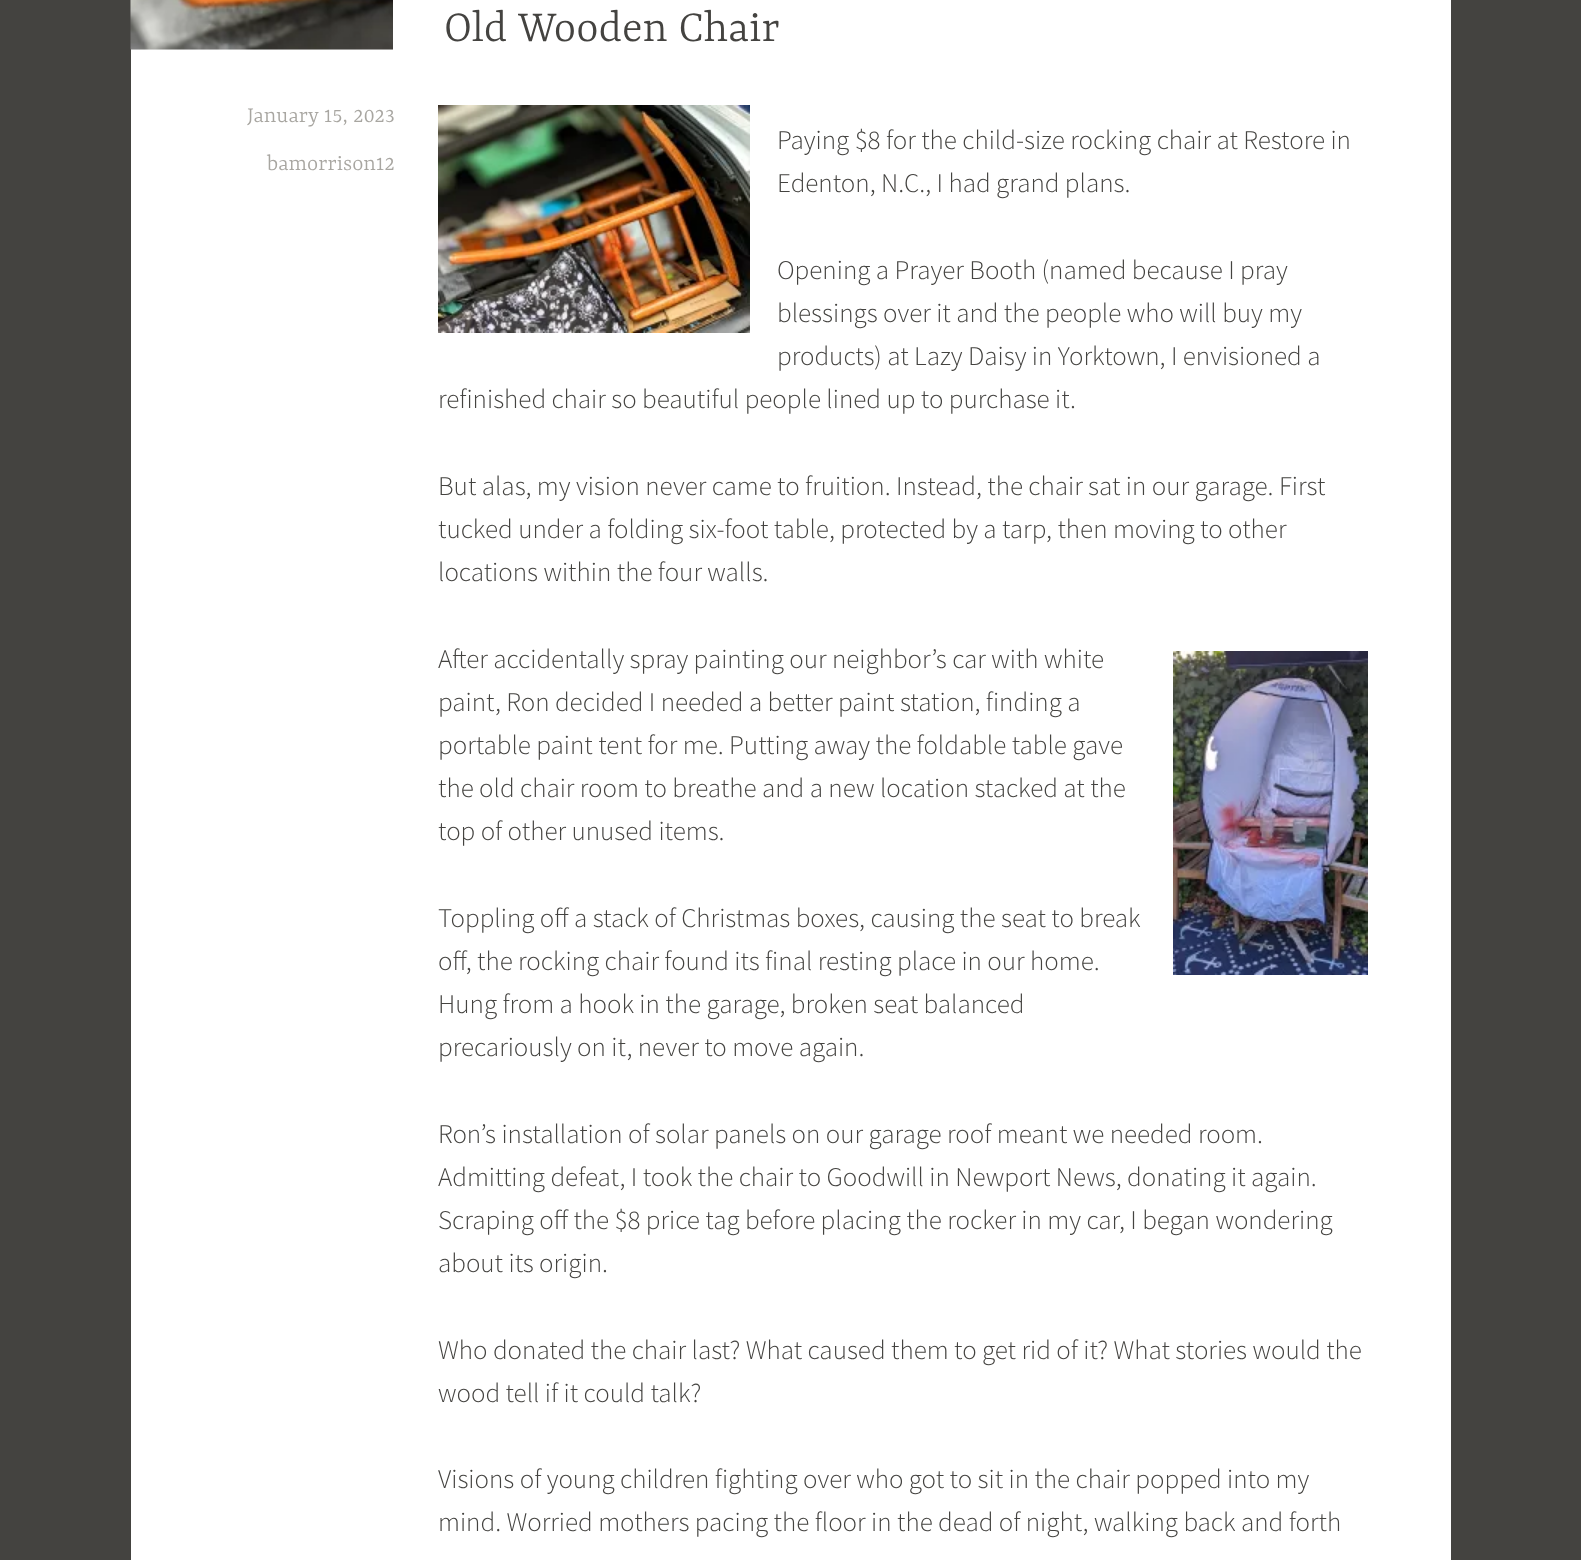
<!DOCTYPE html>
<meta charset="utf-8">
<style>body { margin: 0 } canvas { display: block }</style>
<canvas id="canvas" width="1581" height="1560"></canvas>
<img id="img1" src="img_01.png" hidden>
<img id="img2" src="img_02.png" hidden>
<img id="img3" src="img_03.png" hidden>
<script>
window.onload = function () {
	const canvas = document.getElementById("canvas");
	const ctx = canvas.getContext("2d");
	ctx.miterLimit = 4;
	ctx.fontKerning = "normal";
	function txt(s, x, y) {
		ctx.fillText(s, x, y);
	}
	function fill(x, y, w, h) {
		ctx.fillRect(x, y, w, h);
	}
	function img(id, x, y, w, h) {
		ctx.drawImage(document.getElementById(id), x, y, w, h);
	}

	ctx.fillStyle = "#444340";
	fill(0, 0, 1581, 1560);
	ctx.fillStyle = "#FFFFFF";
	fill(131, 50, 1320, 1510);
	ctx.fillStyle = "#F8F9F8";
	fill(131, 49, 262, 1);
	img("img1", 130, 0, 263, 50);
	ctx.fillStyle = "#FFFFFF";
	fill(393, 0, 1058, 50);
	img("img2", 438, 105, 312, 228);
	img("img3", 1173, 651, 195, 324);
	ctx.font = "300 48px Yrsa";
	ctx.fillStyle = "#444340";
	txt("Old Wooden Chair", 444, 41);
	ctx.font = "300 24px Yrsa";
	ctx.fillStyle = "#A8A6A1";
	txt("January 15, 2023", 247, 122);
	txt("bamorrison12", 267, 170);
	ctx.font = "300 27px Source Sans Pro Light";
	ctx.fillStyle = "#444340";
	txt("Paying $8 for the child-size rocking chair at Restore in", 777, 149);
	txt("Edenton, N.C., I had grand plans.", 777, 192);
	txt("Opening a Prayer Booth (named because I pray", 777, 279);
	txt("blessings over it and the people who will buy my", 777, 322);
	txt("products) at Lazy Daisy in Yorktown, I envisioned a", 777, 365);
	txt("refinished chair so beautiful people lined up to purchase it.", 438, 408);
	txt("But alas, my vision never came to fruition. Instead, the chair sat in our garage. First", 438, 495);
	txt("tucked under a folding six-foot table, protected by a tarp, then moving to other", 438, 538);
	txt("locations within the four walls.", 438, 581);
	txt("After accidentally spray painting our neighbor’s car with white", 438, 668);
	txt("paint, Ron decided I needed a better paint station, finding a", 438, 711);
	txt("portable paint tent for me. Putting away the foldable table gave", 438, 754);
	txt("the old chair room to breathe and a new location stacked at the", 438, 797);
	txt("top of other unused items.", 438, 840);
	txt("Toppling off a stack of Christmas boxes, causing the seat to break", 438, 927);
	txt("off, the rocking chair found its final resting place in our home.", 438, 970);
	txt("Hung from a hook in the garage, broken seat balanced", 438, 1013);
	txt("precariously on it, never to move again.", 438, 1056);
	txt("Ron’s installation of solar panels on our garage roof meant we needed room.", 438, 1143);
	txt("Admitting defeat, I took the chair to Goodwill in Newport News, donating it again.", 438, 1186);
	txt("Scraping off the $8 price tag before placing the rocker in my car, I began wondering", 438, 1229);
	txt("about its origin.", 438, 1272);
	txt("Who donated the chair last? What caused them to get rid of it? What stories would the", 438, 1359);
	txt("wood tell if it could talk?", 438, 1402);
	txt("Visions of young children fighting over who got to sit in the chair popped into my", 438, 1488);
	txt("mind. Worried mothers pacing the floor in the dead of night, walking back and forth", 438, 1531);
};
</script>
